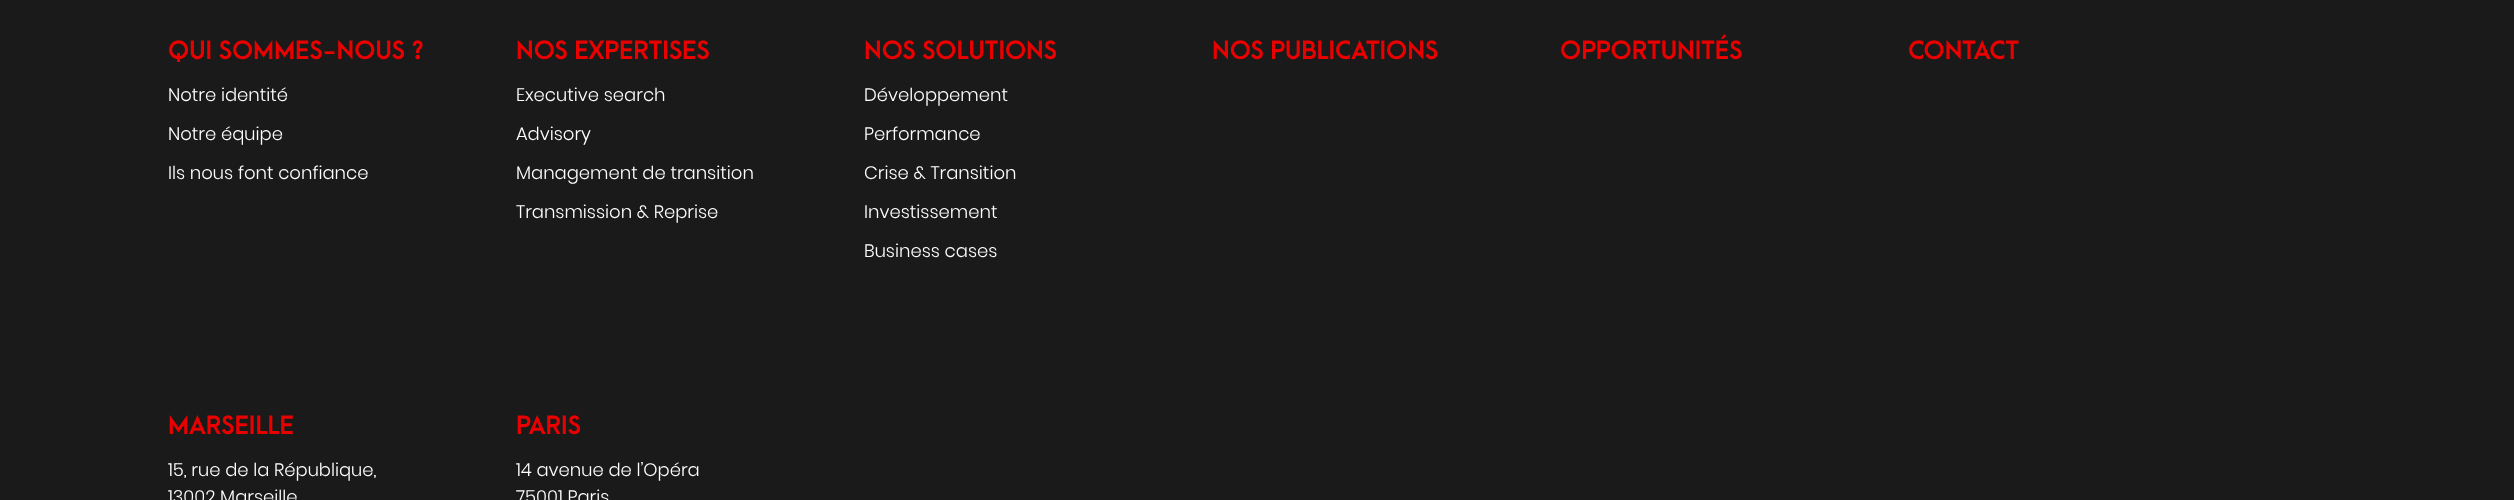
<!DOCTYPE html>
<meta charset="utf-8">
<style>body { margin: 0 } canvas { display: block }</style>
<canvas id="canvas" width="2514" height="500"></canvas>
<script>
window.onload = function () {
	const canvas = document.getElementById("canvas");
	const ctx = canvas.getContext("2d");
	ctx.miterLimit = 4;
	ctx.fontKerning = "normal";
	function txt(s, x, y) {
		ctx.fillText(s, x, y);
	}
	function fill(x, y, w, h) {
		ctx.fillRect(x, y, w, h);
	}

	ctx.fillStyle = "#1A1A1A";
	fill(0, 0, 2514, 500);
	ctx.font = "bold 24px 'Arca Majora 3'";
	ctx.fillStyle = "#EB0000";
	txt("QUI SOMMES-NOUS ?", 168, 59);
	ctx.font = "300 18px Poppins";
	ctx.fillStyle = "#FFFFFF";
	txt("Notre identité", 168, 101);
	txt("Notre équipe", 168, 140);
	txt("Ils nous font confiance", 168, 179);
	ctx.font = "bold 24px 'Arca Majora 3'";
	ctx.fillStyle = "#EB0000";
	txt("NOS EXPERTISES", 516, 59);
	ctx.font = "300 18px Poppins";
	ctx.fillStyle = "#FFFFFF";
	txt("Executive search", 516, 101);
	txt("Advisory", 516, 140);
	txt("Management de transition", 516, 179);
	txt("Transmission & Reprise", 516, 218);
	ctx.font = "bold 24px 'Arca Majora 3'";
	ctx.fillStyle = "#EB0000";
	txt("NOS SOLUTIONS", 864, 59);
	ctx.font = "300 18px Poppins";
	ctx.fillStyle = "#FFFFFF";
	txt("Développement", 864, 101);
	txt("Performance", 864, 140);
	txt("Crise & Transition", 864, 179);
	txt("Investissement", 864, 218);
	txt("Business cases", 864, 257);
	ctx.font = "bold 24px 'Arca Majora 3'";
	ctx.fillStyle = "#EB0000";
	txt("NOS PUBLICATIONS", 1212, 59);
	txt("OPPORTUNITÉS", 1560, 59);
	txt("CONTACT", 1908, 59);
	txt("MARSEILLE", 168, 434);
	ctx.font = "300 18px Poppins";
	ctx.fillStyle = "#FFFFFF";
	txt("15, rue de la République,", 168, 476);
	txt("13002 Marseille", 168, 503);
	ctx.font = "bold 24px 'Arca Majora 3'";
	ctx.fillStyle = "#EB0000";
	txt("PARIS", 516, 434);
	ctx.font = "300 18px Poppins";
	ctx.fillStyle = "#FFFFFF";
	txt("14 avenue de l’Opéra", 516, 476);
	txt("75001 Paris", 516, 503);
};
</script>
